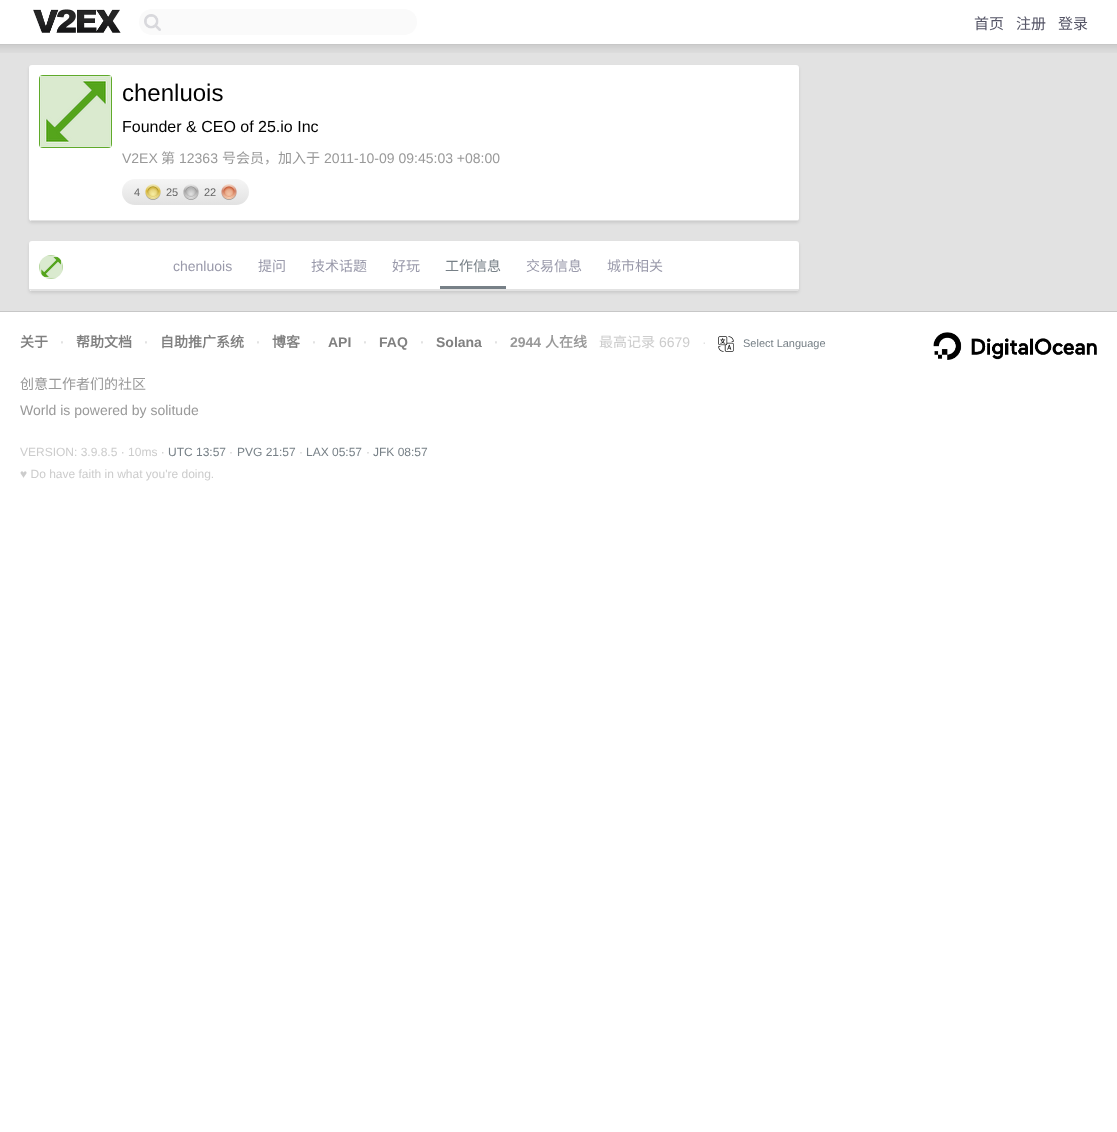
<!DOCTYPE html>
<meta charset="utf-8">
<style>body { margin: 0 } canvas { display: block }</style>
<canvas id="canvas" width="1117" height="1132"></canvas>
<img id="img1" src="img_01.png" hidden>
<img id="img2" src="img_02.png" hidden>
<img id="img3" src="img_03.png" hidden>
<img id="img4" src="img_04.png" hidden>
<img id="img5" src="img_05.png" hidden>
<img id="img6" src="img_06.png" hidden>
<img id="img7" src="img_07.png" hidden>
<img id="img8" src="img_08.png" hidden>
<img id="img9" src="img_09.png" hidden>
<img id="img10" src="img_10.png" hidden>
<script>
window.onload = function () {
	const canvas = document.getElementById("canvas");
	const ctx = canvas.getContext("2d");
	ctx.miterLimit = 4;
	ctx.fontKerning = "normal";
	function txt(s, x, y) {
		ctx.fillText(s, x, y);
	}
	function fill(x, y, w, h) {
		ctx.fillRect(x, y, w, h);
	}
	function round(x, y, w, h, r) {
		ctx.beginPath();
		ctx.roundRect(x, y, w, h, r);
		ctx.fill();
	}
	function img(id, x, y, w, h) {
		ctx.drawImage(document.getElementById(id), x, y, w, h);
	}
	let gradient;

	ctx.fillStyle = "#FFFFFF";
	fill(0, 0, 1117, 1132);
	ctx.fillStyle = "#C7C7C7";
	fill(0, 44, 1117, 1);
	img("img1", 33, 9, 88, 24);
	ctx.fillStyle = "#FAFAFA";
	round(139, 9, 278, 26, 13);
	img("img2", 144, 14, 17, 17);
	ctx.fillStyle = "#E2E2E2";
	fill(0, 45, 1117, 266);
	img("img3", 0, 45, 1117, 8);
	ctx.fillStyle = "rgba(0, 0, 0, 0.1)";
	ctx.filter = "blur(1.5px)";
	ctx.beginPath();
	ctx.roundRect(29, 67, 770, 156, 3);
	ctx.fill();
	ctx.filter = "none";
	ctx.fillStyle = "#FFFFFF";
	round(29, 65, 770, 156, 3);
	ctx.fillStyle = "#E2E2E2";
	fill(31, 220, 767, 1);
	img("img4", 39, 75, 73, 73);
	gradient = ctx.createLinearGradient(186, 179, 186, 205);
	gradient.addColorStop(0, "#F5F5F5");
	gradient.addColorStop(1, "#E2E2E2");
	ctx.fillStyle = gradient;
	round(122, 179, 127, 26, 13);
	img("img5", 145, 184, 16, 16);
	img("img6", 183, 184, 16, 16);
	img("img7", 221, 184, 16, 16);
	ctx.fillStyle = "rgba(0, 0, 0, 0.1)";
	ctx.filter = "blur(1.5px)";
	ctx.beginPath();
	ctx.roundRect(29, 243, 770, 50, 3);
	ctx.fill();
	ctx.filter = "none";
	ctx.fillStyle = "#FFFFFF";
	round(29, 241, 770, 50, 3);
	ctx.fillStyle = "#E2E2E2";
	fill(31, 290, 767, 1);
	fill(29, 289, 770, 1);
	img("img8", 39, 255, 24, 24);
	ctx.fillStyle = "#778087";
	fill(440, 286, 66, 3);
	ctx.fillStyle = "#C7C7C7";
	fill(0, 311, 1117, 1);
	img("img9", 718, 336, 16, 16);
	img("img10", 933, 332, 164, 28);
	ctx.font = "15px Noto Sans CJK SC";
	ctx.fillStyle = "#555566";
	txt("首页", 974, 29);
	txt("注册", 1016, 29);
	txt("登录", 1058, 29);
	ctx.font = "24px Liberation Sans";
	ctx.fillStyle = "#000000";
	txt("chenluois", 122, 101);
	ctx.font = "16px Liberation Sans";
	txt("Founder & CEO of 25.io Inc", 122, 132);
	ctx.font = "14px Liberation Sans";
	ctx.fillStyle = "#999999";
	txt("V2EX", 122, 163);
	ctx.font = "14px Noto Sans CJK SC";
	txt("第", 161, 163);
	ctx.font = "14px Liberation Sans";
	txt("12363", 179, 163);
	ctx.font = "14px Noto Sans CJK SC";
	txt("号会员，加入于", 222, 163);
	ctx.font = "14px Liberation Sans";
	txt("2011-10-09 09:45:03 +08:00", 324, 163);
	ctx.font = "11px Liberation Sans";
	ctx.fillStyle = "#666666";
	txt("4", 134, 196);
	txt("25", 166, 196);
	txt("22", 204, 196);
	ctx.font = "14px Liberation Sans";
	ctx.fillStyle = "#9999AA";
	txt("chenluois", 173, 271);
	ctx.font = "14px Noto Sans CJK SC";
	txt("提问", 258, 271);
	txt("技术话题", 311, 271);
	txt("好玩", 392, 271);
	ctx.fillStyle = "#778087";
	txt("工作信息", 445, 271);
	ctx.fillStyle = "#9999AA";
	txt("交易信息", 526, 271);
	txt("城市相关", 607, 271);
	ctx.font = "bold 14px Noto Sans CJK SC";
	ctx.fillStyle = "#808080";
	txt("关于", 20, 347);
	ctx.font = "bold 14px Liberation Sans";
	ctx.fillStyle = "#E2E2E2";
	txt("·", 60, 347);
	ctx.font = "bold 14px Noto Sans CJK SC";
	ctx.fillStyle = "#808080";
	txt("帮助文档", 76, 347);
	ctx.font = "bold 14px Liberation Sans";
	ctx.fillStyle = "#E2E2E2";
	txt("·", 144, 347);
	ctx.font = "bold 14px Noto Sans CJK SC";
	ctx.fillStyle = "#808080";
	txt("自助推广系统", 160, 347);
	ctx.font = "bold 14px Liberation Sans";
	ctx.fillStyle = "#E2E2E2";
	txt("·", 256, 347);
	ctx.font = "bold 14px Noto Sans CJK SC";
	ctx.fillStyle = "#808080";
	txt("博客", 272, 347);
	ctx.font = "bold 14px Liberation Sans";
	ctx.fillStyle = "#E2E2E2";
	txt("·", 312, 347);
	ctx.fillStyle = "#808080";
	txt("API", 328, 347);
	ctx.fillStyle = "#E2E2E2";
	txt("·", 363, 347);
	ctx.fillStyle = "#808080";
	txt("FAQ", 379, 347);
	ctx.fillStyle = "#E2E2E2";
	txt("·", 420, 347);
	ctx.fillStyle = "#808080";
	txt("Solana", 436, 347);
	ctx.fillStyle = "#E2E2E2";
	txt("·", 494, 347);
	ctx.fillStyle = "#999999";
	txt("2944", 510, 347);
	ctx.font = "bold 14px Noto Sans CJK SC";
	txt("人在线", 545, 347);
	ctx.font = "14px Noto Sans CJK SC";
	ctx.fillStyle = "#CCCCCC";
	txt("最高记录", 599, 347);
	ctx.font = "14px Liberation Sans";
	txt("6679", 659, 347);
	ctx.fillStyle = "#E2E2E2";
	txt("·", 702, 347);
	ctx.font = "11px Liberation Sans";
	ctx.fillStyle = "#778087";
	txt("Select Language", 743, 347);
	ctx.font = "14px Noto Sans CJK SC";
	ctx.fillStyle = "#999999";
	txt("创意工作者们的社区", 20, 389);
	ctx.font = "14px Liberation Sans";
	txt("World is powered by solitude", 20, 415);
	ctx.font = "12px Liberation Sans";
	ctx.fillStyle = "#CCCCCC";
	txt("VERSION: 3.9.8.5 · 10ms ·", 20, 456);
	ctx.fillStyle = "#778087";
	txt("UTC 13:57", 168, 456);
	ctx.fillStyle = "#CCCCCC";
	txt("·", 229, 456);
	ctx.fillStyle = "#778087";
	txt("PVG 21:57", 237, 456);
	ctx.fillStyle = "#CCCCCC";
	txt("·", 299, 456);
	ctx.fillStyle = "#778087";
	txt("LAX 05:57", 306, 456);
	ctx.fillStyle = "#CCCCCC";
	txt("·", 366, 456);
	ctx.fillStyle = "#778087";
	txt("JFK 08:57", 373, 456);
	ctx.fillStyle = "#CCCCCC";
	txt("♥ Do have faith in what you're doing.", 20, 478);
};
</script>
